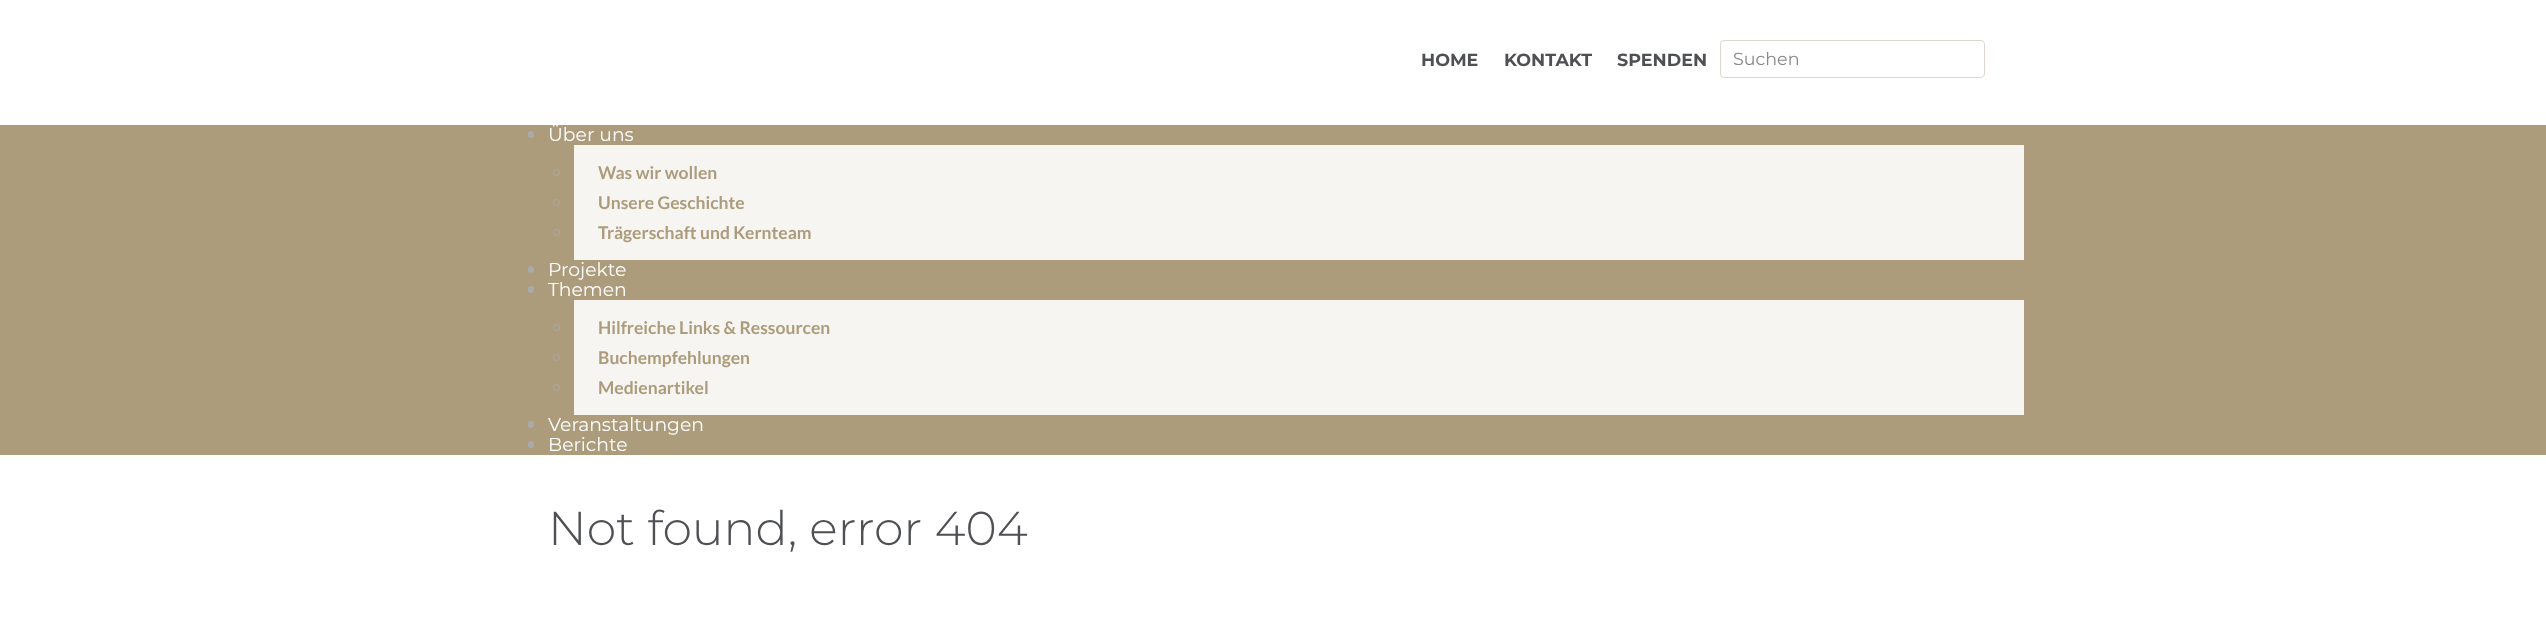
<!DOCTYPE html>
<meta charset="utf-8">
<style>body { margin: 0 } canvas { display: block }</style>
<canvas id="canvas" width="2546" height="618"></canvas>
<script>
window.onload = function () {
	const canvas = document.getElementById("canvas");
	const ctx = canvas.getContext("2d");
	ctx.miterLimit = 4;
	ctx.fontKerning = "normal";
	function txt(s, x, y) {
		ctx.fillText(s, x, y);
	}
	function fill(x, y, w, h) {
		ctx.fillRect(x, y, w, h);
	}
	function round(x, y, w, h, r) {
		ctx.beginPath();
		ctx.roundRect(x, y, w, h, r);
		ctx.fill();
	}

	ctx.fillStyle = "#FFFFFF";
	fill(0, 0, 2546, 618);
	ctx.beginPath();
	ctx.roundRect(1720.5, 40.5, 264, 37, 3.5);
	ctx.strokeStyle = "#DCD7CF";
	ctx.stroke();
	ctx.fillStyle = "#AC9C7B";
	fill(0, 125, 2546, 330);
	ctx.fillStyle = "#AAAAAA";
	round(528, 131, 6, 7, 3);
	ctx.fillStyle = "#F7F5F2";
	fill(574, 145, 1450, 115);
	ctx.beginPath();
	ctx.arc(556.5, 172.5, 3, 0, Math.PI * 2);
	ctx.strokeStyle = "#AAAAAA";
	ctx.stroke();
	ctx.beginPath();
	ctx.arc(556.5, 202.5, 3, 0, Math.PI * 2);
	ctx.stroke();
	ctx.beginPath();
	ctx.arc(556.5, 232.5, 3, 0, Math.PI * 2);
	ctx.stroke();
	ctx.fillStyle = "#AAAAAA";
	round(528, 266, 6, 7, 3);
	round(528, 286, 6, 7, 3);
	ctx.fillStyle = "#F7F5F2";
	fill(574, 300, 1450, 115);
	ctx.beginPath();
	ctx.arc(556.5, 327.5, 3, 0, Math.PI * 2);
	ctx.stroke();
	ctx.beginPath();
	ctx.arc(556.5, 357.5, 3, 0, Math.PI * 2);
	ctx.stroke();
	ctx.beginPath();
	ctx.arc(556.5, 387.5, 3, 0, Math.PI * 2);
	ctx.stroke();
	ctx.fillStyle = "#AAAAAA";
	round(528, 421, 6, 7, 3);
	round(528, 441, 6, 7, 3);
	ctx.font = "100 17.5px Montserrat";
	ctx.fillStyle = "#4E5054";
	txt("HOME", 1421, 66);
	txt("KONTAKT", 1504, 66);
	txt("SPENDEN", 1617, 66);
	ctx.font = "17.5px Montserrat";
	ctx.fillStyle = "#888888";
	txt("Suchen", 1733, 65);
	ctx.font = "18.75px Montserrat";
	ctx.fillStyle = "#FFFFFF";
	txt("Über uns", 548, 141);
	ctx.font = "bold 17.5px Lato";
	ctx.fillStyle = "#AC9C7B";
	txt("Was wir wollen", 598, 179);
	txt("Unsere Geschichte", 598, 209);
	txt("Trägerschaft und Kernteam", 598, 239);
	ctx.font = "18.75px Montserrat";
	ctx.fillStyle = "#FFFFFF";
	txt("Projekte", 548, 276);
	txt("Themen", 548, 296);
	ctx.font = "bold 17.5px Lato";
	ctx.fillStyle = "#AC9C7B";
	txt("Hilfreiche Links & Ressourcen", 598, 334);
	txt("Buchempfehlungen", 598, 364);
	txt("Medienartikel", 598, 394);
	ctx.font = "18.75px Montserrat";
	ctx.fillStyle = "#FFFFFF";
	txt("Veranstaltungen", 548, 431);
	txt("Berichte", 548, 451);
	ctx.font = "300 47.5px Montserrat";
	ctx.fillStyle = "#4E5054";
	txt("Not found, error 404", 548, 545);
};
</script>
